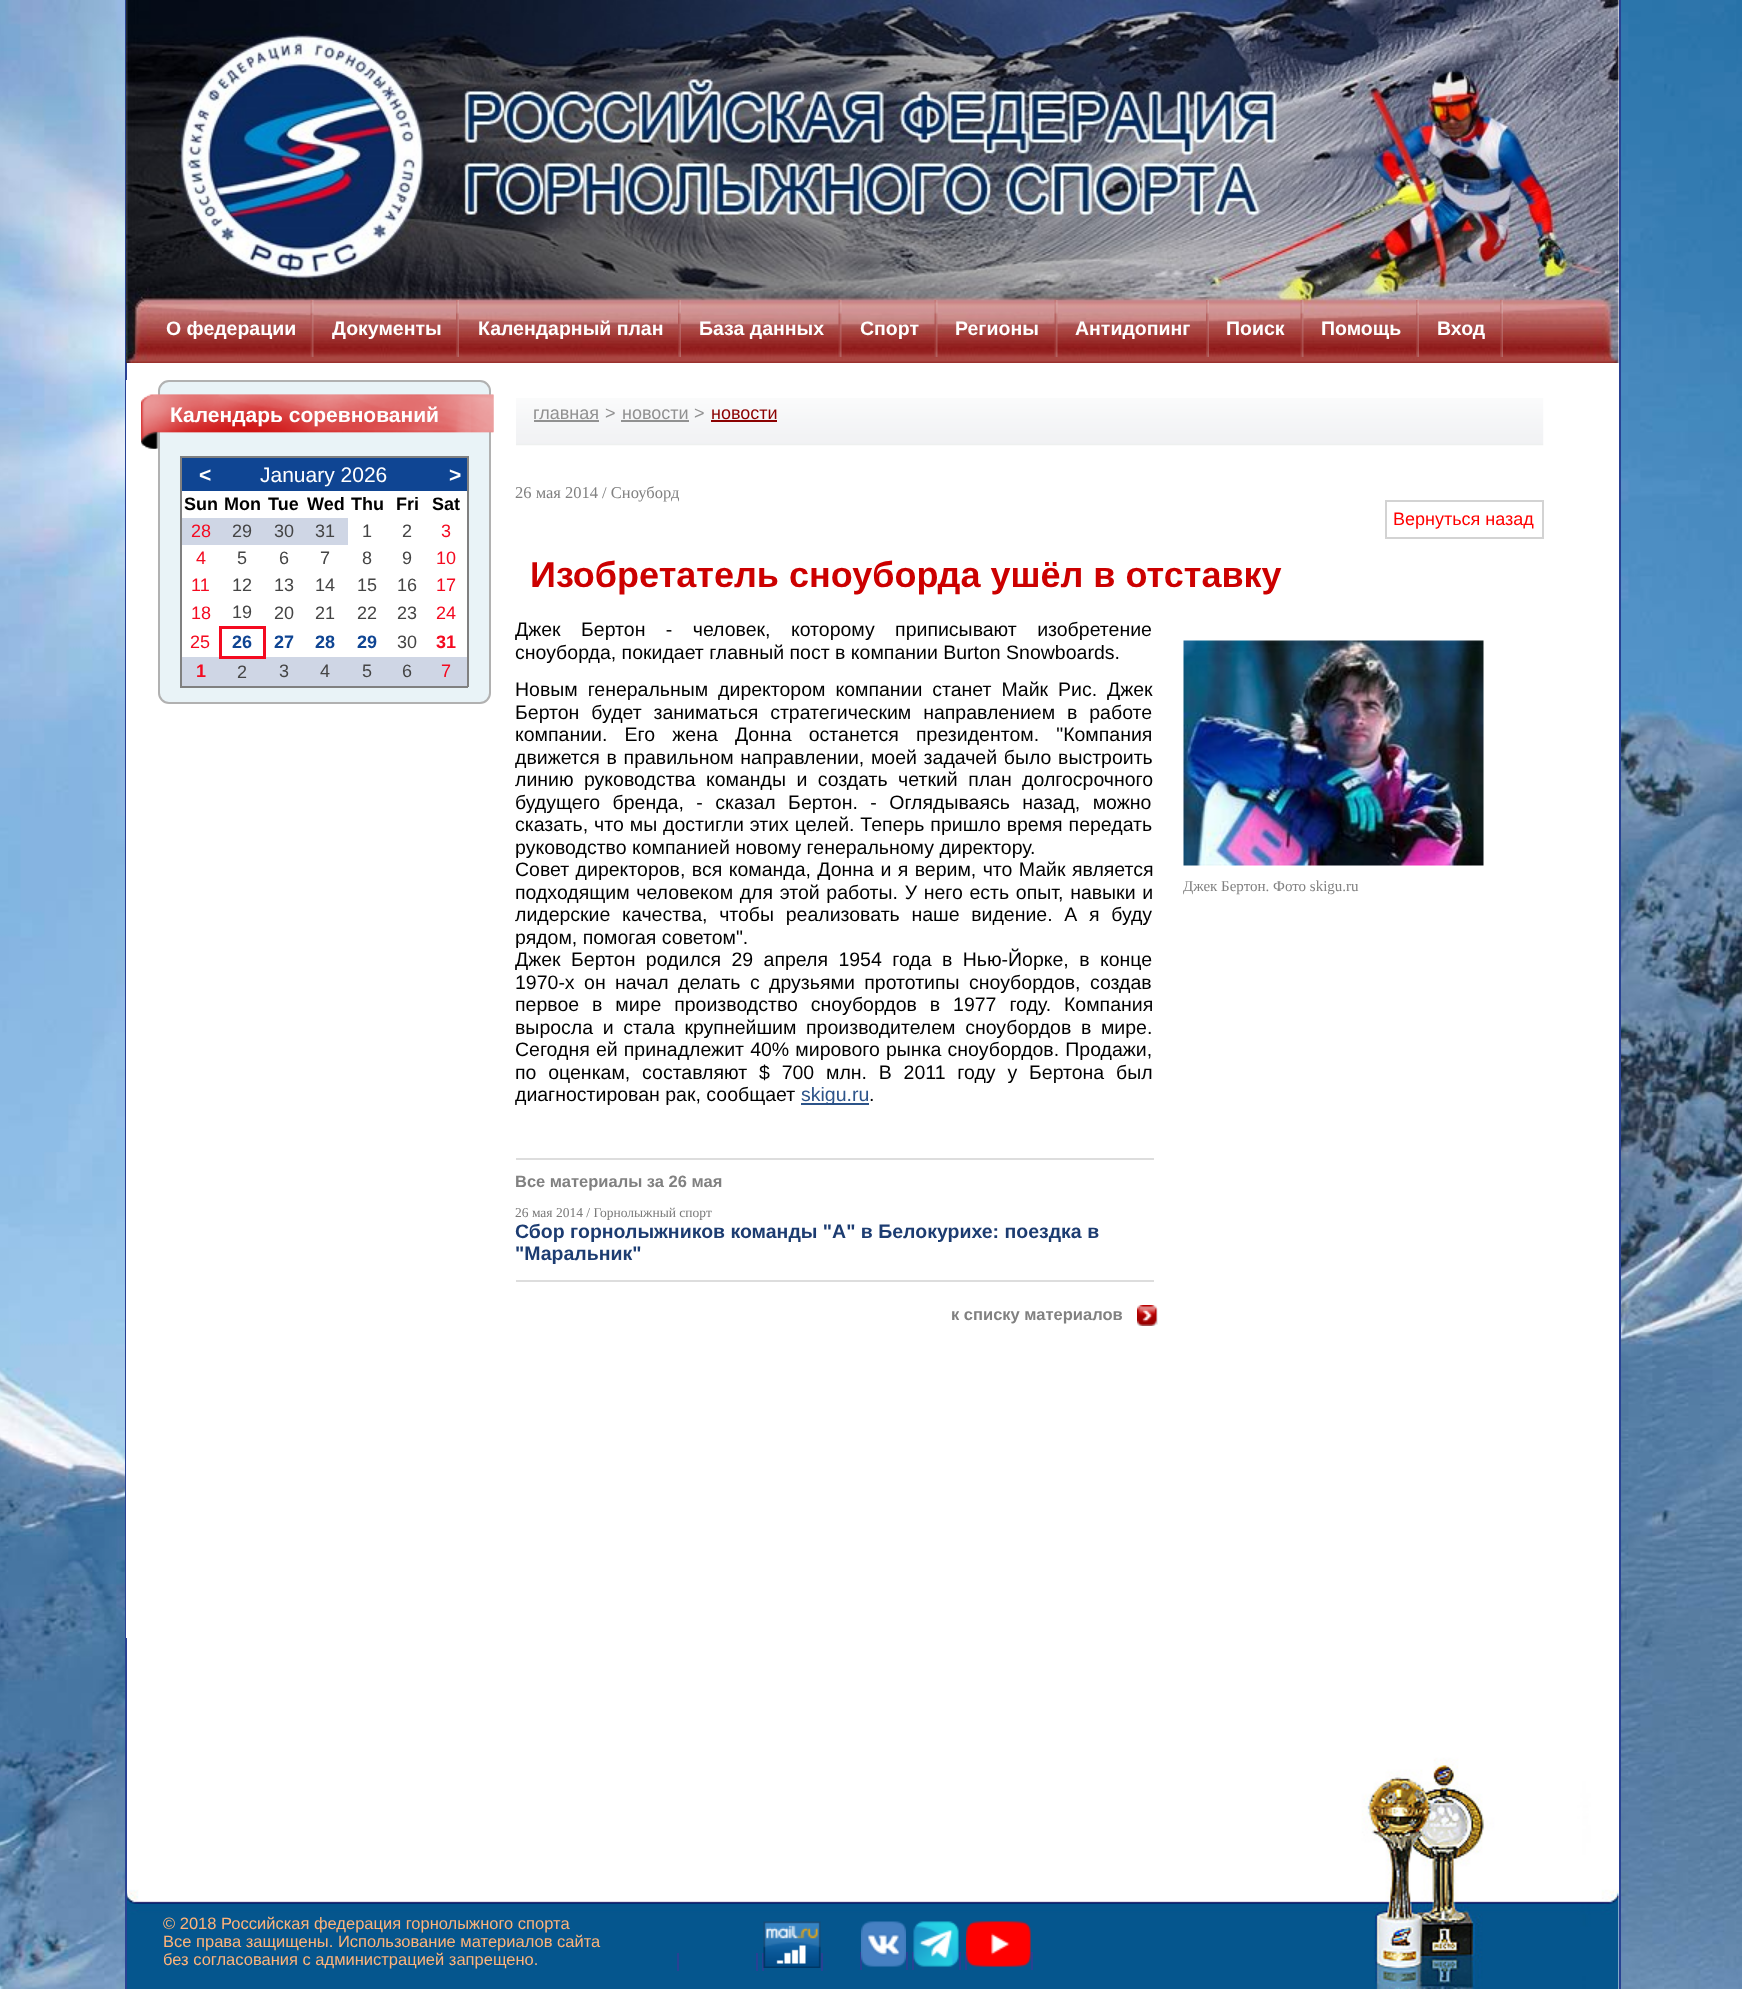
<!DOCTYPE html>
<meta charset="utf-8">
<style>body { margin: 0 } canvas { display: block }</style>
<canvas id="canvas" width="1742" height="1989"></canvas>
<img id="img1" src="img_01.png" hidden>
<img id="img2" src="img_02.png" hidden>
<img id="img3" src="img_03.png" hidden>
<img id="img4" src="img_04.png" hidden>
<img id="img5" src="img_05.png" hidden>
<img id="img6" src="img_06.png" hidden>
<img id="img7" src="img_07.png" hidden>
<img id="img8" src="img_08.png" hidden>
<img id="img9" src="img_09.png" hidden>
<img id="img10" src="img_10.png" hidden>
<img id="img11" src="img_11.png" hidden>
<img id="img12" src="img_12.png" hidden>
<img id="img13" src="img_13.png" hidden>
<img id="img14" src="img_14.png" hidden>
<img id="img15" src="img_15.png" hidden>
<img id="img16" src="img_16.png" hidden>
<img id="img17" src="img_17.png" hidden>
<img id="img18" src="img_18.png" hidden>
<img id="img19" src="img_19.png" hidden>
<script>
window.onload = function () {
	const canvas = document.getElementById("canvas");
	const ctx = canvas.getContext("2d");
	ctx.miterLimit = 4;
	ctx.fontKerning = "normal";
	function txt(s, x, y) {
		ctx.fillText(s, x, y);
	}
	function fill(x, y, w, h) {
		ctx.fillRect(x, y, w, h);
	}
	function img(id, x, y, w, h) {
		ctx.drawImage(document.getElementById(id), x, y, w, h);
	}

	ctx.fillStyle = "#FFFFFF";
	fill(0, 0, 1742, 1989);
	img("img1", 0, 0, 1742, 1989);
	fill(127, 0, 1492, 1989);
	ctx.fillStyle = "#294194";
	fill(1619, 0, 2, 1989);
	fill(125, 0, 2, 1989);
	img("img2", 126, 0, 1493, 363);
	img("img3", 310, 300, 4, 57);
	img("img4", 456, 300, 3, 57);
	img("img5", 678, 300, 3, 57);
	img("img6", 838, 300, 4, 57);
	img("img7", 934, 300, 4, 57);
	img("img8", 1054, 300, 4, 57);
	img("img4", 1206, 300, 3, 57);
	img("img9", 1300, 300, 4, 57);
	img("img5", 1416, 300, 3, 57);
	img("img4", 1500, 300, 3, 57);
	ctx.fillStyle = "#FFFFFF";
	fill(126, 380, 1, 1258);
	ctx.fillStyle = "#E9F3F7";
	ctx.beginPath();
	ctx.roundRect(159, 381, 331, 322, 10);
	ctx.fill();
	ctx.strokeStyle = "#B1B1B1";
	ctx.lineWidth = 2;
	ctx.stroke();
	img("img10", 141, 394, 353, 55);
	img("img11", 141, 394, 353, 55);
	ctx.fillStyle = "#FFFFFF";
	fill(182, 491, 285, 166);
	ctx.fillStyle = "#808080";
	fill(180, 456, 288, 2);
	fill(467, 456, 2, 231);
	fill(180, 686, 288, 2);
	fill(180, 456, 2, 231);
	ctx.fillStyle = "#0F4593";
	fill(182, 458, 285, 33);
	ctx.fillStyle = "#CFD6E5";
	fill(182, 518, 166, 27);
	ctx.fillStyle = "#F40A20";
	fill(219, 626, 47, 3);
	ctx.fillStyle = "#CFD6E5";
	fill(264, 657, 203, 29);
	ctx.fillStyle = "#F40A20";
	fill(263, 626, 3, 33);
	ctx.fillStyle = "#CFD6E5";
	fill(182, 657, 39, 29);
	ctx.fillStyle = "#F40A20";
	fill(219, 656, 47, 3);
	fill(219, 626, 3, 33);
	ctx.fillStyle = "#CFD6E5";
	fill(221, 659, 43, 27);
	img("img12", 516, 398, 1028, 48);
	ctx.fillStyle = "#919191";
	fill(534, 420, 65, 2);
	fill(621, 420, 68, 2);
	ctx.fillStyle = "#8B0101";
	fill(711, 420, 66, 2);
	ctx.strokeStyle = "#D3D3D3";
	ctx.strokeRect(1386, 501, 157, 37);
	ctx.fillStyle = "#2C5389";
	fill(801, 1103, 68, 2);
	ctx.fillStyle = "#DDDDDD";
	fill(516, 1158, 638, 2);
	fill(516, 1280, 638, 2);
	img("img13", 1183, 640, 301, 226);
	img("img14", 1137, 1305, 21, 21);
	img("img15", 127, 1734, 1492, 255);
	ctx.fillStyle = "#294194";
	fill(677, 1953, 2, 18);
	fill(756, 1953, 2, 18);
	fill(762, 1953, 2, 18);
	img("img16", 763, 1921, 58, 47);
	fill(821, 1953, 2, 18);
	fill(860, 1952, 2, 18);
	img("img17", 861, 1921, 45, 46);
	fill(912, 1952, 2, 18);
	img("img18", 913, 1921, 46, 46);
	fill(965, 1952, 2, 18);
	img("img19", 966, 1921, 65, 46);
	fill(906, 1952, 2, 18);
	fill(959, 1952, 2, 18);
	fill(1031, 1952, 2, 18);
	ctx.font = "bold 19.5px Liberation Sans";
	ctx.fillStyle = "#FFFFFF";
	txt("О федерации", 166, 335);
	txt("Документы", 332, 335);
	txt("Календарный план", 478, 335);
	txt("База данных", 699, 335);
	txt("Спорт", 860, 335);
	txt("Регионы", 955, 335);
	txt("Aнтидопинг", 1075, 335);
	txt("Поиск", 1226, 335);
	txt("Помощь", 1321, 335);
	txt("Вход", 1437, 335);
	ctx.font = "bold 21px Liberation Sans";
	txt("Календарь соревнований", 170, 422);
	txt("<", 199, 482);
	ctx.font = "21px Liberation Sans";
	txt("January 2026", 260, 482);
	ctx.font = "bold 21px Liberation Sans";
	txt(">", 449, 482);
	ctx.font = "bold 18px Liberation Sans";
	ctx.fillStyle = "#000000";
	txt("Sun", 184, 510);
	txt("Mon", 224, 510);
	txt("Tue", 268, 510);
	txt("Wed", 307, 510);
	txt("Thu", 351, 510);
	txt("Fri", 396, 510);
	txt("Sat", 432, 510);
	ctx.font = "18px Liberation Sans";
	ctx.fillStyle = "#F40A20";
	txt("28", 191, 537);
	ctx.fillStyle = "#454545";
	txt("29", 232, 537);
	txt("30", 274, 537);
	txt("31", 315, 537);
	txt("1", 362, 537);
	txt("2", 402, 537);
	ctx.fillStyle = "#F40A20";
	txt("3", 441, 537);
	txt("4", 196, 564);
	ctx.fillStyle = "#454545";
	txt("5", 237, 564);
	txt("6", 279, 564);
	txt("7", 320, 564);
	txt("8", 362, 564);
	txt("9", 402, 564);
	ctx.fillStyle = "#F40A20";
	txt("10", 436, 564);
	txt("11", 191, 591);
	ctx.fillStyle = "#454545";
	txt("12", 232, 591);
	txt("13", 274, 591);
	txt("14", 315, 591);
	txt("15", 357, 591);
	txt("16", 397, 591);
	ctx.fillStyle = "#F40A20";
	txt("17", 436, 591);
	txt("18", 191, 619);
	ctx.fillStyle = "#454545";
	txt("19", 232, 618);
	txt("20", 274, 619);
	txt("21", 315, 619);
	txt("22", 357, 619);
	txt("23", 397, 619);
	ctx.fillStyle = "#F40A20";
	txt("24", 436, 619);
	txt("25", 190, 648);
	ctx.font = "bold 18px Liberation Sans";
	ctx.fillStyle = "#0F4593";
	txt("26", 232, 648);
	txt("27", 274, 648);
	txt("28", 315, 648);
	txt("29", 357, 648);
	ctx.font = "18px Liberation Sans";
	ctx.fillStyle = "#454545";
	txt("30", 397, 648);
	ctx.font = "bold 18px Liberation Sans";
	ctx.fillStyle = "#F40A20";
	txt("31", 436, 648);
	txt("1", 196, 677);
	ctx.font = "18px Liberation Sans";
	ctx.fillStyle = "#454545";
	txt("2", 237, 678);
	txt("3", 279, 677);
	txt("4", 320, 677);
	txt("5", 362, 677);
	txt("6", 402, 677);
	ctx.fillStyle = "#F40A20";
	txt("7", 441, 677);
	ctx.fillStyle = "#919191";
	txt("главная", 533, 419);
	txt(">", 605, 419);
	txt("новости", 622, 419);
	txt(">", 694, 419);
	ctx.fillStyle = "#8B0101";
	txt("новости", 711, 419);
	ctx.font = "16.5px Liberation Serif";
	ctx.fillStyle = "#818181";
	txt("26 мая 2014 / Сноуборд", 515, 498);
	ctx.font = "18px Liberation Sans";
	ctx.fillStyle = "#FF0000";
	txt("Вернуться назад", 1393, 525);
	ctx.font = "bold 36px Liberation Sans";
	ctx.fillStyle = "#CC0000";
	txt("Изобретатель сноуборда ушёл в отставку", 530, 587);
	ctx.wordSpacing = "15px";
	ctx.font = "19.5px Liberation Sans";
	ctx.fillStyle = "#000000";
	txt("Джек Бертон - человек, которому приписывают изобретение", 515, 636);
	ctx.wordSpacing = "0px";
	txt("сноуборда, покидает главный пост в компании Burton Snowboards.", 515, 659);
	ctx.wordSpacing = "4.5px";
	txt("Новым генеральным директором компании станет Майк Рис. Джек", 515, 696);
	ctx.wordSpacing = "6.5px";
	txt("Бертон будет заниматься стратегическим направлением в работе", 515, 719);
	ctx.wordSpacing = "11.75px";
	txt("компании. Его жена Донна останется президентом. \"Компания", 515, 741);
	ctx.wordSpacing = "1.25px";
	txt("движется в правильном направлении, моей задачей было выстроить", 515, 764);
	ctx.wordSpacing = "5px";
	txt("линию руководства команды и создать четкий план долгосрочного", 515, 786);
	ctx.wordSpacing = "7px";
	txt("будущего бренда, - сказал Бертон. - Оглядываясь назад, можно", 515, 809);
	ctx.wordSpacing = "0.5px";
	txt("сказать, что мы достигли этих целей. Теперь пришло время передать", 515, 831);
	ctx.wordSpacing = "0px";
	txt("руководство компанией новому генеральному директору.", 515, 854);
	ctx.wordSpacing = "1px";
	txt("Совет директоров, вся команда, Донна и я верим, что Майк является", 515, 876);
	ctx.wordSpacing = "1.25px";
	txt("подходящим человеком для этой работы. У него есть опыт, навыки и", 515, 899);
	ctx.wordSpacing = "6.25px";
	txt("лидерские качества, чтобы реализовать наше видение. А я буду", 515, 921);
	ctx.wordSpacing = "0px";
	txt("рядом, помогая советом\".", 515, 944);
	ctx.wordSpacing = "5px";
	txt("Джек Бертон родился 29 апреля 1954 года в Нью-Йорке, в конце", 515, 966);
	ctx.wordSpacing = "4px";
	txt("1970-х он начал делать с друзьями прототипы сноубордов, создав", 515, 989);
	ctx.wordSpacing = "7.5px";
	txt("первое в мире производство сноубордов в 1977 году. Компания", 515, 1011);
	ctx.wordSpacing = "4.25px";
	txt("выросла и стала крупнейшим производителем сноубордов в мире.", 515, 1034);
	ctx.wordSpacing = "0.75px";
	txt("Сегодня ей принадлежит 40% мирового рынка сноубордов. Продажи,", 515, 1056);
	ctx.wordSpacing = "6.4px";
	txt("по оценкам, составляют $ 700 млн. В 2011 году у Бертона был", 515, 1079);
	ctx.wordSpacing = "0px";
	txt("диагностирован рак, сообщает", 515, 1101);
	ctx.fillStyle = "#2C5389";
	txt("skigu.ru", 801, 1101);
	ctx.fillStyle = "#000000";
	txt(".", 869, 1101);
	ctx.font = "bold 16.5px Liberation Sans";
	ctx.fillStyle = "#818181";
	txt("Все материалы за 26 мая", 515, 1187);
	ctx.font = "13.5px Liberation Serif";
	ctx.fillStyle = "#797979";
	txt("26 мая 2014 / Горнолыжный спорт", 515, 1217);
	ctx.font = "bold 19.5px Liberation Sans";
	ctx.fillStyle = "#1C3C71";
	txt("Сбор горнолыжников команды \"А\" в Белокурихе: поездка в", 515, 1238);
	txt("\"Маральник\"", 515, 1260);
	ctx.font = "15px Liberation Serif";
	ctx.fillStyle = "#818181";
	txt("Джек Бертон. Фото skigu.ru", 1183, 891);
	ctx.font = "bold 16.5px Liberation Sans";
	txt("к списку материалов", 951, 1320);
	ctx.font = "16.5px Liberation Sans";
	ctx.fillStyle = "#FFB47A";
	txt("© 2018 Российская федерация горнолыжного спорта", 163, 1929);
	txt("Все права защищены. Использование материалов сайта", 163, 1947);
	txt("без согласования с администрацией запрещено.", 163, 1965);
};
</script>
